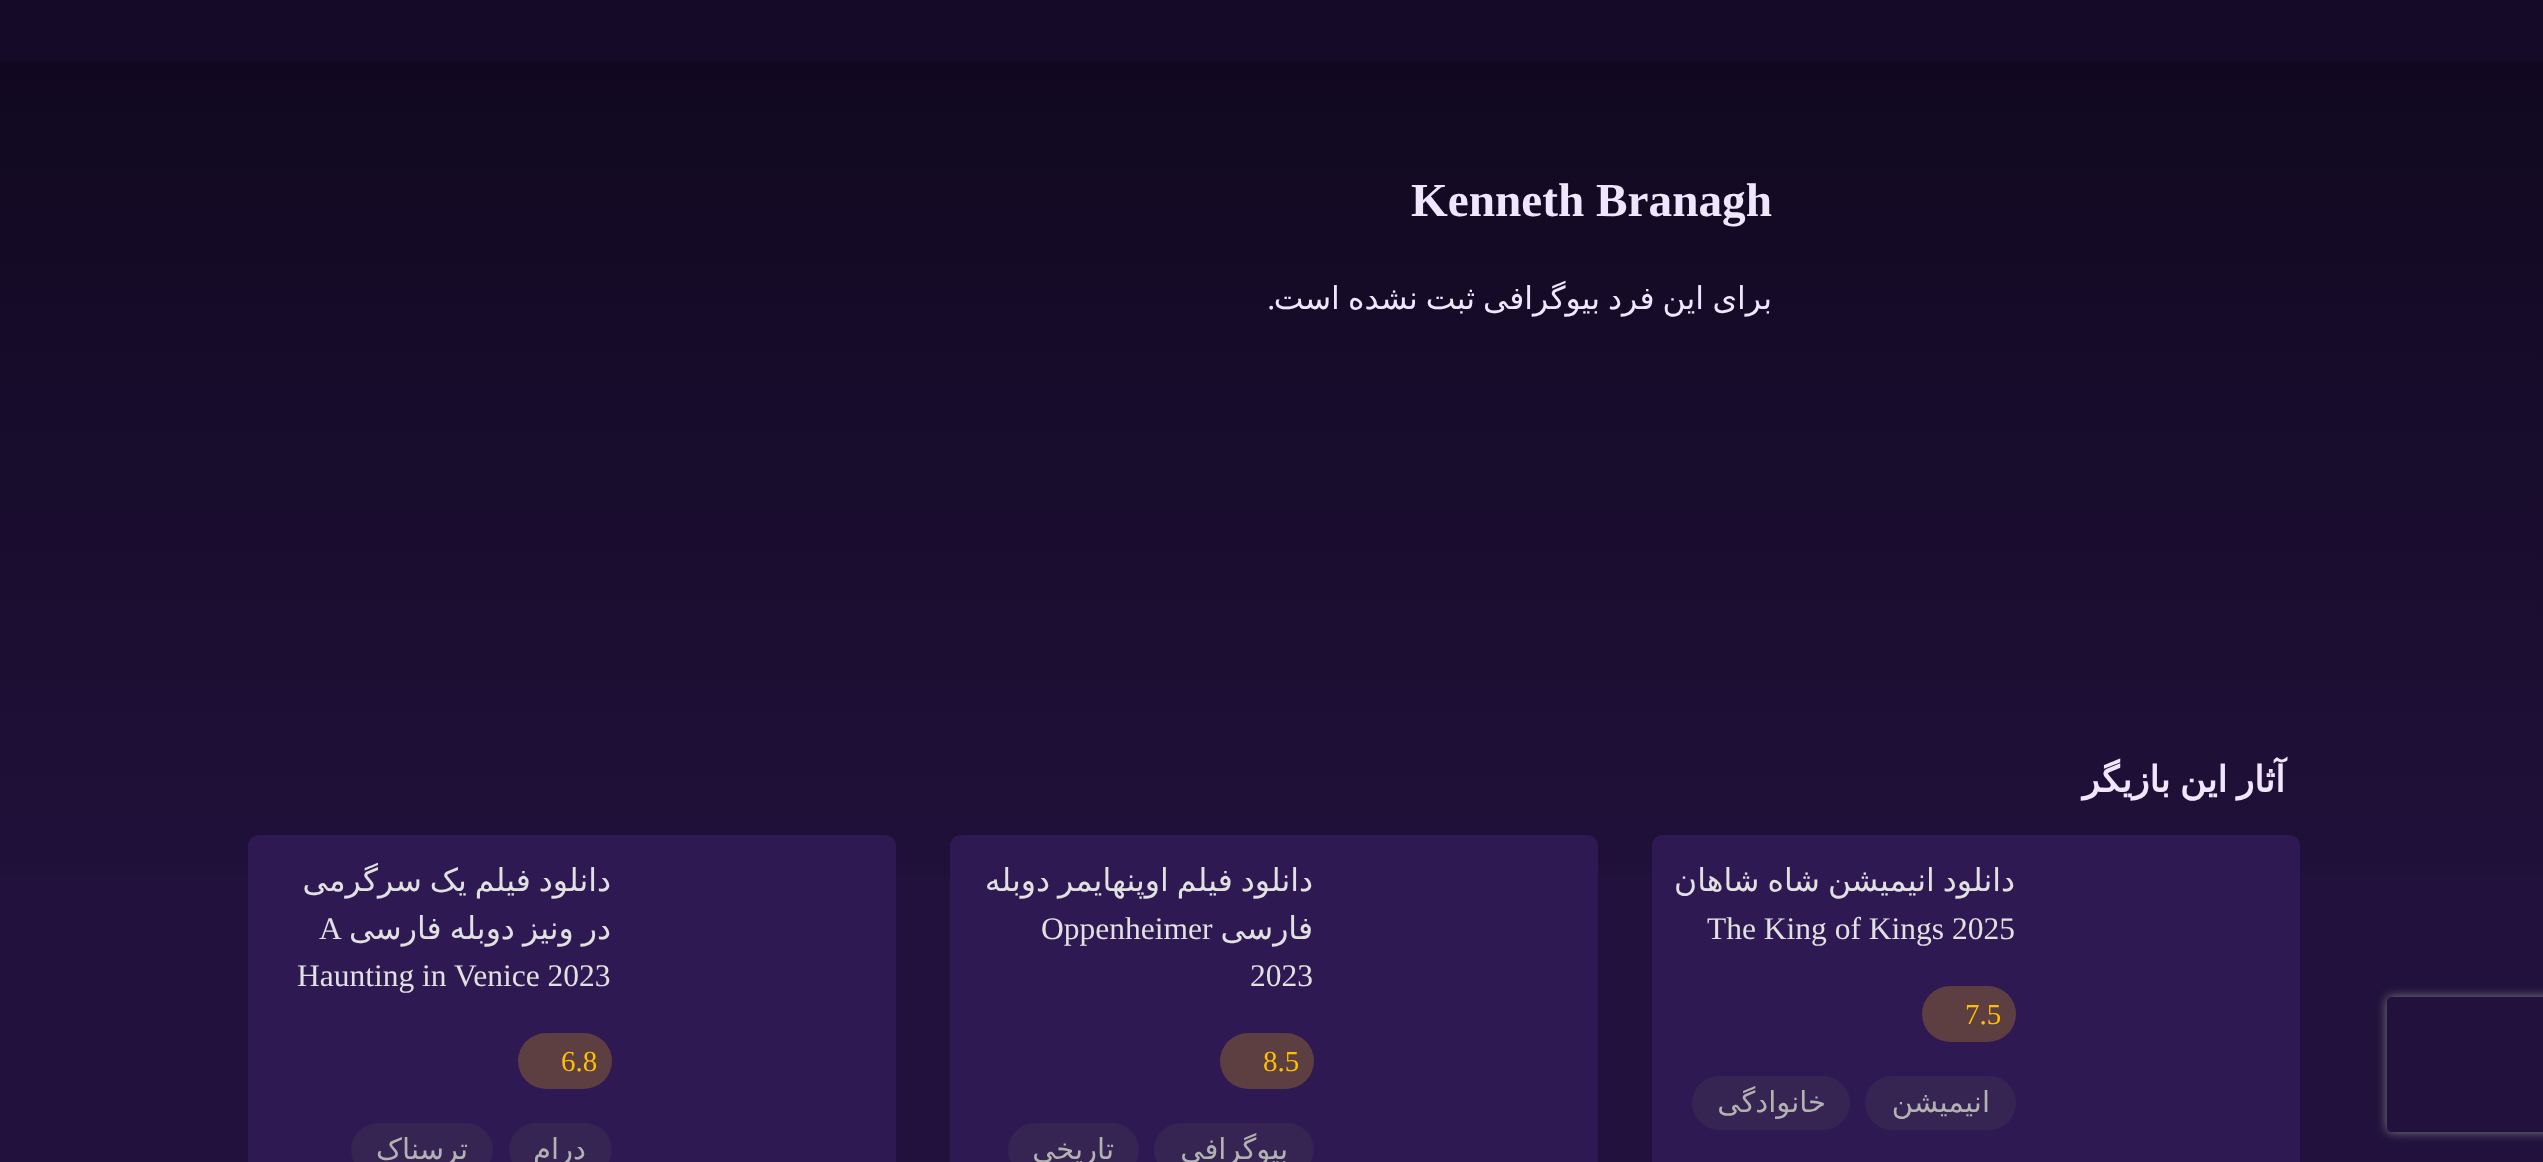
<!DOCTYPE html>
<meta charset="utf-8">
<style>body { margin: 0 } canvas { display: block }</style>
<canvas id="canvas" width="2543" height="1162"></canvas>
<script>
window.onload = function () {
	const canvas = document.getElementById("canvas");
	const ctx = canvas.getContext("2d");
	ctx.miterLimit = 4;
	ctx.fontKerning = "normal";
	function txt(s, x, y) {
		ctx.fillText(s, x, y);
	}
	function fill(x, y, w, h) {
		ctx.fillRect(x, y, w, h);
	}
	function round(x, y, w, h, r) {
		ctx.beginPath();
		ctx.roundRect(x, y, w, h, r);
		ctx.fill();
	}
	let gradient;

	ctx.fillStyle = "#21113C";
	fill(0, 0, 2543, 1162);
	ctx.fillStyle = "#150B29";
	fill(0, 0, 2543, 61);
	gradient = ctx.createLinearGradient(1272, 954, 1272, -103);
	gradient.addColorStop(0, "#21113C");
	gradient.addColorStop(1, "#0E071B");
	ctx.fillStyle = gradient;
	fill(0, 61, 2543, 813);
	ctx.save();
	ctx.beginPath();
	ctx.moveTo(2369, 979);
	ctx.lineTo(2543, 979);
	ctx.lineTo(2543, 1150);
	ctx.lineTo(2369, 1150);
	ctx.closePath();
	ctx.moveTo(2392, 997);
	ctx.lineTo(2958, 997);
	ctx.bezierCurveTo(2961, 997, 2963, 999, 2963, 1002);
	ctx.lineTo(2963, 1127);
	ctx.bezierCurveTo(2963, 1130, 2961, 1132, 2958, 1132);
	ctx.lineTo(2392, 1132);
	ctx.bezierCurveTo(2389, 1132, 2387, 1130, 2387, 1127);
	ctx.lineTo(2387, 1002);
	ctx.bezierCurveTo(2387, 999, 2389, 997, 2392, 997);
	ctx.closePath();
	ctx.clip("evenodd");
	ctx.fillStyle = "#808080";
	ctx.filter = "blur(5.5px)";
	ctx.beginPath();
	ctx.roundRect(2387, 997, 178, 135, 5);
	ctx.fill();
	ctx.filter = "none";
	ctx.restore();
	ctx.fillStyle = "#2F1953";
	round(1652, 835, 648, 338, 11);
	ctx.fillStyle = "#5D3E41";
	round(1922, 986, 94, 56, 28);
	ctx.fillStyle = "#362553";
	round(1865, 1076, 151, 54, 27);
	round(1692, 1076, 158, 54, 27);
	ctx.fillStyle = "#2F1953";
	round(950, 835, 648, 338, 11);
	ctx.fillStyle = "#5D3E41";
	round(1220, 1033, 94, 56, 28);
	ctx.fillStyle = "#362553";
	round(1154, 1123, 160, 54, 27);
	round(1008, 1123, 131, 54, 27);
	ctx.fillStyle = "#2F1953";
	round(248, 835, 648, 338, 11);
	ctx.fillStyle = "#5D3E41";
	round(518, 1033, 94, 56, 28);
	ctx.fillStyle = "#362553";
	round(509, 1123, 103, 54, 27);
	round(351, 1123, 142, 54, 27);
	ctx.font = "bold 47.25px Liberation Serif";
	ctx.fillStyle = "#EFE6FF";
	txt("Kenneth Branagh", 1411, 216);
	ctx.direction = "rtl";
	ctx.font = "31.5px DejaVu Sans";
	txt("برای", 1772, 309);
	ctx.wordSpacing = "-2px";
	txt("این فرد بیوگرافی ثبت نشده است", 1704, 309);
	ctx.wordSpacing = "0px";
	ctx.font = "31.5px Liberation Serif";
	txt(".", 1275, 309);
	ctx.wordSpacing = "-2px";
	ctx.font = "bold 36px DejaVu Sans";
	txt("آثار این بازیگر", 2285, 792);
	ctx.font = "31.5px DejaVu Sans";
	ctx.fillStyle = "#E1E1E1";
	txt("دانلود انیمیشن شاه شاهان", 2015, 891);
	ctx.wordSpacing = "0px";
	ctx.direction = "ltr";
	ctx.font = "31.5px Liberation Serif";
	txt("The King of Kings 2025", 1707, 939);
	ctx.font = "29px Liberation Serif";
	ctx.fillStyle = "#FFBF00";
	txt("7.5", 1965, 1024);
	ctx.direction = "rtl";
	ctx.font = "29px DejaVu Sans";
	ctx.fillStyle = "#B2B2B2";
	txt("انیمیشن", 1990, 1112);
	txt("خانوادگی", 1826, 1112);
	ctx.wordSpacing = "-2px";
	ctx.font = "31.5px DejaVu Sans";
	ctx.fillStyle = "#E1E1E1";
	txt("دانلود فیلم اوپنهایمر دوبله", 1313, 891);
	ctx.wordSpacing = "0px";
	txt("فارسی", 1313, 939);
	ctx.direction = "ltr";
	ctx.font = "31.5px Liberation Serif";
	txt("Oppenheimer", 1041, 939);
	txt("2023", 1250, 986);
	ctx.font = "29px Liberation Serif";
	ctx.fillStyle = "#FFBF00";
	txt("8.5", 1263, 1071);
	ctx.direction = "rtl";
	ctx.font = "29px DejaVu Sans";
	ctx.fillStyle = "#B2B2B2";
	txt("بیوگرافی", 1288, 1159);
	txt("تاریخی", 1114, 1159);
	ctx.wordSpacing = "-2px";
	ctx.font = "31.5px DejaVu Sans";
	ctx.fillStyle = "#E1E1E1";
	txt("دانلود فیلم یک سرگرمی", 611, 891);
	txt("در ونیز دوبله فارسی", 611, 939);
	ctx.wordSpacing = "0px";
	ctx.direction = "ltr";
	ctx.font = "31.5px Liberation Serif";
	txt("A", 319, 939);
	txt("Haunting in Venice 2023", 297, 986);
	ctx.font = "29px Liberation Serif";
	ctx.fillStyle = "#FFBF00";
	txt("6.8", 561, 1071);
	ctx.direction = "rtl";
	ctx.font = "29px DejaVu Sans";
	ctx.fillStyle = "#B2B2B2";
	txt("درام", 586, 1159);
	txt("ترسناک", 468, 1159);
};
</script>
